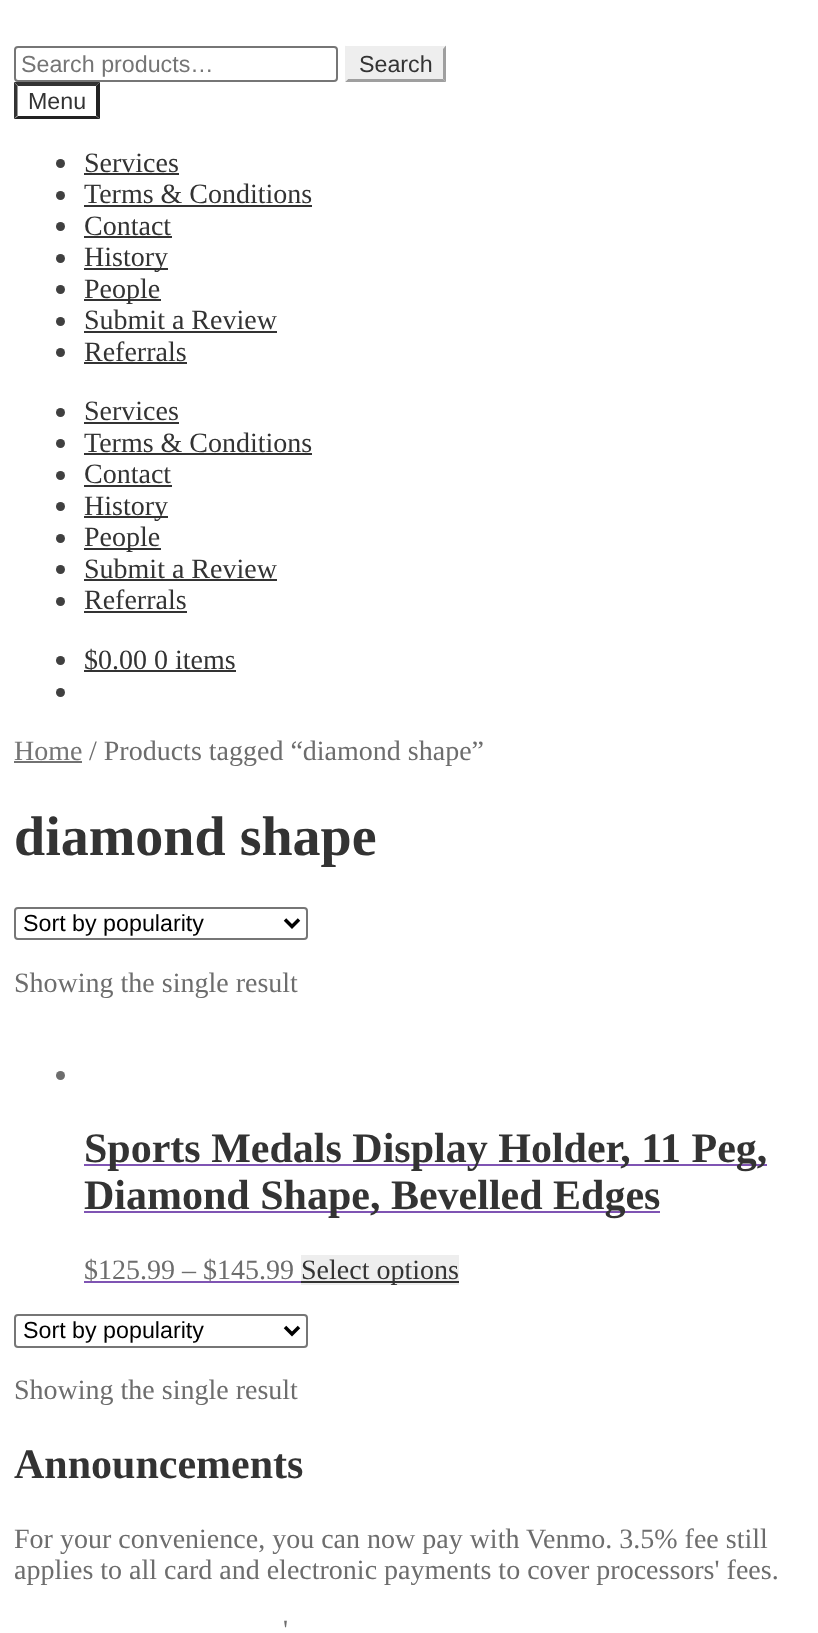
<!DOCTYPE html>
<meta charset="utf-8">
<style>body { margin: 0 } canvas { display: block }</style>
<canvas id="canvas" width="818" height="1633"></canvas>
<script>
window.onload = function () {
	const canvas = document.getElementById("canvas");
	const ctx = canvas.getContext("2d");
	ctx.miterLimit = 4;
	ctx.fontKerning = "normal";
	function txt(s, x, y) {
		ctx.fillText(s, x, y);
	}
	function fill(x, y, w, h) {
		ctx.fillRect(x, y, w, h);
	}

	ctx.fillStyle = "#FFFFFF";
	fill(0, 0, 818, 1633);
	ctx.beginPath();
	ctx.roundRect(15, 47, 322, 34, 3);
	ctx.strokeStyle = "#767676";
	ctx.lineWidth = 2;
	ctx.stroke();
	ctx.fillStyle = "#EEEEEE";
	fill(345, 46, 101, 36);
	ctx.fillStyle = "#9F9F9F";
	ctx.beginPath();
	ctx.moveTo(446, 45.5);
	ctx.lineTo(446, 82);
	ctx.lineTo(443, 79);
	ctx.lineTo(443, 49);
	ctx.closePath();
	ctx.fill();
	ctx.beginPath();
	ctx.moveTo(446, 82);
	ctx.lineTo(345, 82);
	ctx.lineTo(348, 79);
	ctx.lineTo(443, 79);
	ctx.closePath();
	ctx.fill();
	ctx.fillStyle = "#EEEEEE";
	ctx.beginPath();
	ctx.moveTo(345, 82);
	ctx.lineTo(345, 45.5);
	ctx.lineTo(348, 49);
	ctx.lineTo(348, 79);
	ctx.closePath();
	ctx.fill();
	ctx.fillStyle = "#333333";
	ctx.beginPath();
	ctx.moveTo(14, 82);
	ctx.lineTo(100, 82);
	ctx.lineTo(96, 86);
	ctx.lineTo(18, 86);
	ctx.closePath();
	ctx.fill();
	ctx.fillStyle = "#222222";
	ctx.beginPath();
	ctx.moveTo(100, 82);
	ctx.lineTo(100, 119);
	ctx.lineTo(96, 115.5);
	ctx.lineTo(96, 86);
	ctx.closePath();
	ctx.fill();
	ctx.beginPath();
	ctx.moveTo(100, 119);
	ctx.lineTo(14, 119);
	ctx.lineTo(18, 116);
	ctx.lineTo(96, 116);
	ctx.closePath();
	ctx.fill();
	ctx.fillStyle = "#333333";
	ctx.beginPath();
	ctx.moveTo(14, 119);
	ctx.lineTo(14, 82);
	ctx.lineTo(17.5, 86);
	ctx.lineTo(17.5, 115.5);
	ctx.closePath();
	ctx.fill();
	ctx.fillStyle = "#404040";
	ctx.beginPath();
	ctx.arc(60.5, 163.5, 4.5, 0, Math.PI * 2);
	ctx.fill();
	ctx.fillStyle = "#333333";
	fill(84, 173, 95, 2);
	ctx.fillStyle = "#404040";
	ctx.beginPath();
	ctx.arc(60.5, 195.5, 4.5, 0, Math.PI * 2);
	ctx.fill();
	ctx.fillStyle = "#333333";
	fill(84, 205, 228, 2);
	ctx.fillStyle = "#404040";
	ctx.beginPath();
	ctx.arc(60.5, 226.5, 4.5, 0, Math.PI * 2);
	ctx.fill();
	ctx.fillStyle = "#333333";
	fill(84, 236, 88, 2);
	ctx.fillStyle = "#404040";
	ctx.beginPath();
	ctx.arc(60.5, 258.5, 4.5, 0, Math.PI * 2);
	ctx.fill();
	ctx.fillStyle = "#333333";
	fill(84, 268, 84, 2);
	ctx.fillStyle = "#404040";
	ctx.beginPath();
	ctx.arc(60.5, 289.5, 4.5, 0, Math.PI * 2);
	ctx.fill();
	ctx.fillStyle = "#333333";
	fill(84, 299, 77, 2);
	ctx.fillStyle = "#404040";
	ctx.beginPath();
	ctx.arc(60.5, 321.5, 4.5, 0, Math.PI * 2);
	ctx.fill();
	ctx.fillStyle = "#333333";
	fill(84, 331, 193, 2);
	ctx.fillStyle = "#404040";
	ctx.beginPath();
	ctx.arc(60.5, 352.5, 4.5, 0, Math.PI * 2);
	ctx.fill();
	ctx.fillStyle = "#333333";
	fill(84, 362, 103, 2);
	ctx.fillStyle = "#404040";
	ctx.beginPath();
	ctx.arc(60.5, 412.5, 4.5, 0, Math.PI * 2);
	ctx.fill();
	ctx.fillStyle = "#333333";
	fill(84, 422, 95, 2);
	ctx.fillStyle = "#404040";
	ctx.beginPath();
	ctx.arc(60.5, 443.5, 4.5, 0, Math.PI * 2);
	ctx.fill();
	ctx.fillStyle = "#333333";
	fill(84, 453, 228, 2);
	ctx.fillStyle = "#404040";
	ctx.beginPath();
	ctx.arc(60.5, 475.5, 4.5, 0, Math.PI * 2);
	ctx.fill();
	ctx.fillStyle = "#333333";
	fill(84, 485, 88, 2);
	ctx.fillStyle = "#404040";
	ctx.beginPath();
	ctx.arc(60.5, 506.5, 4.5, 0, Math.PI * 2);
	ctx.fill();
	ctx.fillStyle = "#333333";
	fill(84, 516, 84, 2);
	ctx.fillStyle = "#404040";
	ctx.beginPath();
	ctx.arc(60.5, 538.5, 4.5, 0, Math.PI * 2);
	ctx.fill();
	ctx.fillStyle = "#333333";
	fill(84, 548, 77, 2);
	ctx.fillStyle = "#404040";
	ctx.beginPath();
	ctx.arc(60.5, 569.5, 4.5, 0, Math.PI * 2);
	ctx.fill();
	ctx.fillStyle = "#333333";
	fill(84, 579, 193, 2);
	ctx.fillStyle = "#404040";
	ctx.beginPath();
	ctx.arc(60.5, 601.5, 4.5, 0, Math.PI * 2);
	ctx.fill();
	ctx.fillStyle = "#333333";
	fill(84, 611, 103, 2);
	ctx.fillStyle = "#404040";
	ctx.beginPath();
	ctx.arc(60.5, 660.5, 4.5, 0, Math.PI * 2);
	ctx.fill();
	ctx.fillStyle = "#333333";
	fill(84, 670, 152, 2);
	ctx.fillStyle = "#404040";
	ctx.beginPath();
	ctx.arc(60.5, 692.5, 4.5, 0, Math.PI * 2);
	ctx.fill();
	ctx.fillStyle = "#727272";
	fill(14, 761, 68, 2);
	ctx.beginPath();
	ctx.roundRect(15, 908, 292, 31, 3);
	ctx.stroke();
	ctx.beginPath();
	ctx.moveTo(285, 919.5);
	ctx.lineTo(292, 926.5);
	ctx.lineTo(299, 919.5);
	ctx.strokeStyle = "#000000";
	ctx.lineWidth = 3.5;
	ctx.stroke();
	ctx.fillStyle = "#6D6D6D";
	ctx.beginPath();
	ctx.arc(60.5, 1075.5, 4.5, 0, Math.PI * 2);
	ctx.fill();
	ctx.fillStyle = "#7F54B3";
	fill(84, 1164, 683, 2);
	fill(84, 1211, 576, 2);
	fill(84, 1281, 112, 2);
	ctx.fillStyle = "#EEEEEE";
	fill(301, 1255, 158, 30);
	ctx.fillStyle = "#333333";
	fill(301, 1281, 158, 2);
	ctx.beginPath();
	ctx.roundRect(15, 1315, 292, 32, 3);
	ctx.strokeStyle = "#767676";
	ctx.lineWidth = 2;
	ctx.stroke();
	ctx.beginPath();
	ctx.moveTo(285, 1327);
	ctx.lineTo(292, 1334);
	ctx.lineTo(299, 1327);
	ctx.strokeStyle = "#000000";
	ctx.lineWidth = 3.5;
	ctx.stroke();
	ctx.font = "23.25px Liberation Sans";
	ctx.fillStyle = "#757575";
	txt("Search products…", 21, 72);
	ctx.fillStyle = "#333333";
	txt("Search", 359, 72);
	txt("Menu", 28, 109);
	ctx.font = "28px Liberation Serif";
	txt("Services", 84, 172);
	txt("Terms & Conditions", 84, 203);
	txt("Contact", 84, 235);
	txt("History", 84, 266);
	txt("People", 84, 298);
	txt("Submit a Review", 84, 329);
	txt("Referrals", 84, 361);
	txt("Services", 84, 420);
	txt("Terms & Conditions", 84, 452);
	txt("Contact", 84, 483);
	txt("History", 84, 515);
	txt("People", 84, 546);
	txt("Submit a Review", 84, 578);
	txt("Referrals", 84, 609);
	txt("$0.00 0 items", 84, 669);
	ctx.fillStyle = "#757575";
	txt("Home", 14, 760);
	ctx.fillStyle = "#6D6D6D";
	txt("/ Products tagged “diamond shape”", 89, 760);
	ctx.font = "bold 56px Liberation Serif";
	ctx.fillStyle = "#333333";
	txt("diamond shape", 14, 855);
	ctx.font = "23.25px Liberation Sans";
	ctx.fillStyle = "#000000";
	txt("Sort by popularity", 23, 931);
	ctx.font = "28px Liberation Serif";
	ctx.fillStyle = "#6D6D6D";
	txt("Showing the single result", 14, 992);
	ctx.font = "bold 42px Liberation Serif";
	ctx.fillStyle = "#333333";
	txt("Sports Medals Display Holder, 11 Peg,", 84, 1162);
	txt("Diamond Shape, Bevelled Edges", 84, 1209);
	ctx.font = "28px Liberation Serif";
	ctx.fillStyle = "#6D6D6D";
	txt("$125.99 –", 84, 1279);
	ctx.fillStyle = "#7F54B3";
	fill(196, 1281, 105, 2);
	ctx.fillStyle = "#6D6D6D";
	txt("$145.99", 203, 1279);
	ctx.fillStyle = "#333333";
	txt("Select options", 301, 1279);
	ctx.font = "23.25px Liberation Sans";
	ctx.fillStyle = "#000000";
	txt("Sort by popularity", 23, 1338);
	ctx.font = "28px Liberation Serif";
	ctx.fillStyle = "#6D6D6D";
	txt("Showing the single result", 14, 1399);
	ctx.font = "bold 42px Liberation Serif";
	ctx.fillStyle = "#333333";
	txt("Announcements", 14, 1478);
	ctx.font = "28px Liberation Serif";
	ctx.fillStyle = "#6D6D6D";
	txt("For your convenience, you can now pay with Venmo. 3.5% fee still", 14, 1548);
	txt("applies to all card and electronic payments to cover processors' fees.", 14, 1579);
	txt("'", 283, 1639);
};
</script>
